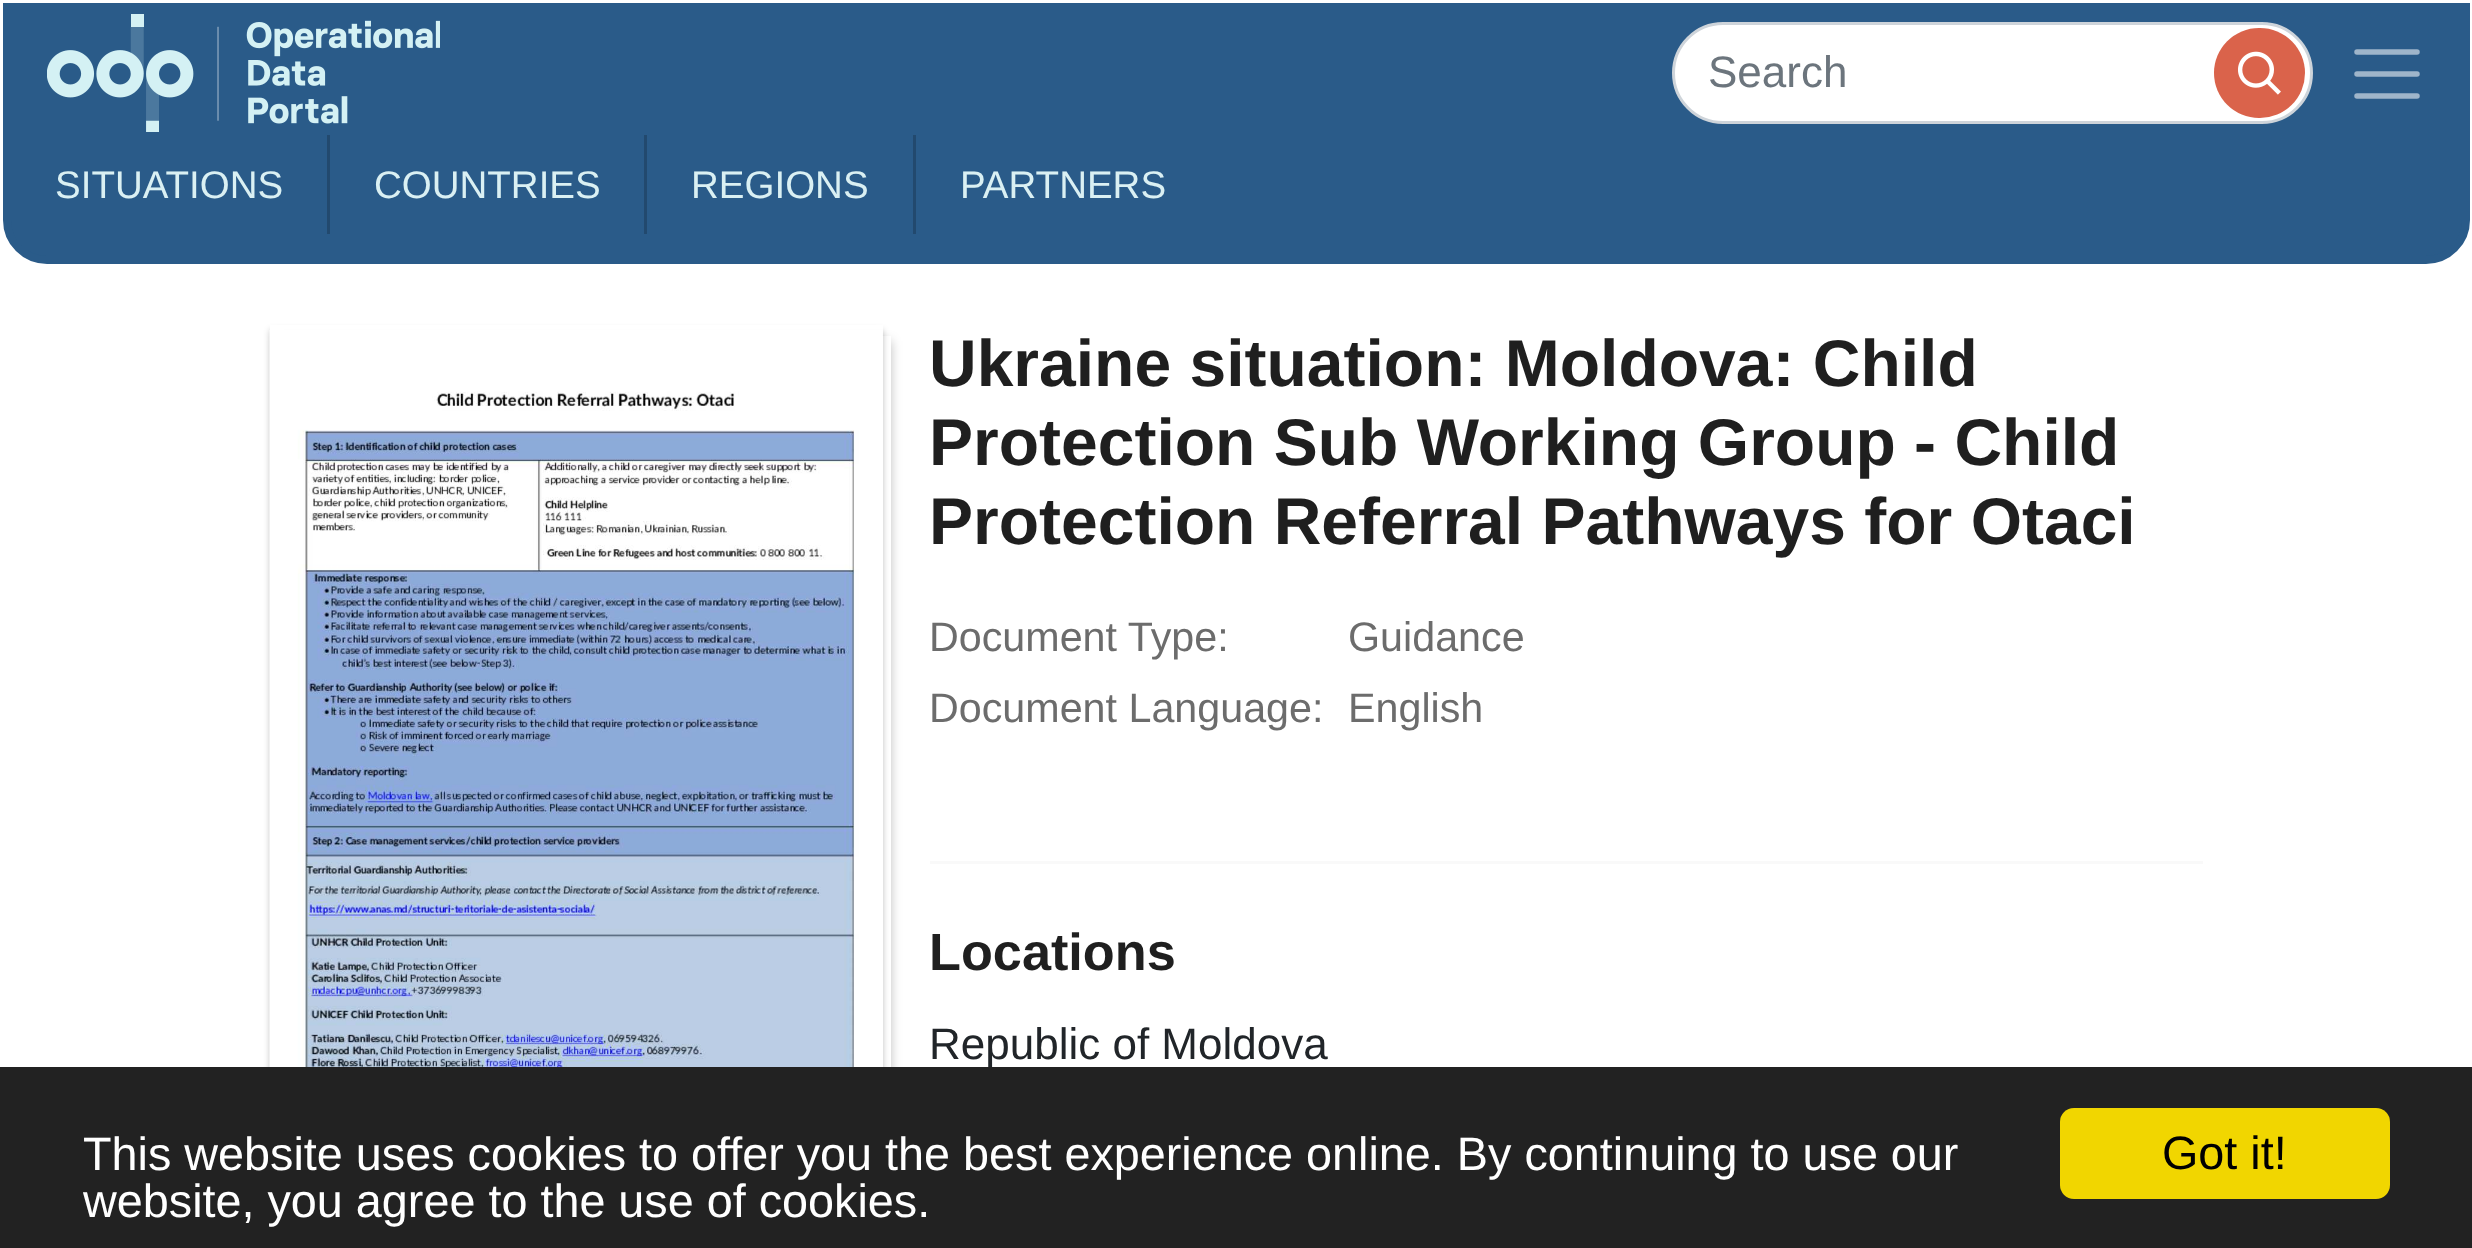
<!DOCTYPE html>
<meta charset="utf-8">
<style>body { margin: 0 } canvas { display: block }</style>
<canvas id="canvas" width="2472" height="1248"></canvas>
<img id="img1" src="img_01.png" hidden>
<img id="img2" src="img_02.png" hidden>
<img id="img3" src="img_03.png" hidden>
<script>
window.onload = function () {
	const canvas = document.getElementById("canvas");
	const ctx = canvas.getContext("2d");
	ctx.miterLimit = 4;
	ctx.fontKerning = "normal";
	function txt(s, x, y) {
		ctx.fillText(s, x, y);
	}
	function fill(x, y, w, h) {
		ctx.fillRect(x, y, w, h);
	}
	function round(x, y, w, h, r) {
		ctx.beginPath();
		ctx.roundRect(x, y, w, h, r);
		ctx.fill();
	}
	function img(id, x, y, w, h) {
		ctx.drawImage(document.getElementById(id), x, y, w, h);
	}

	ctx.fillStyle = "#FFFFFF";
	fill(0, 0, 2472, 1248);
	ctx.fillStyle = "#2A5B89";
	ctx.beginPath();
	ctx.roundRect(7, 7, 2459, 253, [0, 0, 40, 40]);
	ctx.fill();
	ctx.strokeStyle = "#2A5B89";
	ctx.lineWidth = 8;
	ctx.stroke();
	img("img1", 47, 14, 393, 118);
	ctx.fillStyle = "#FFFFFF";
	ctx.beginPath();
	ctx.roundRect(1673.5, 23.5, 638, 99, 49.5);
	ctx.fill();
	ctx.strokeStyle = "#CED4DA";
	ctx.lineWidth = 3;
	ctx.stroke();
	ctx.fillStyle = "#DA634B";
	round(2214, 28, 91, 90, 45);
	img("img2", 2238, 51, 43, 44);
	ctx.beginPath();
	ctx.moveTo(2357, 52);
	ctx.lineTo(2417, 52);
	ctx.moveTo(2357, 74);
	ctx.lineTo(2417, 74);
	ctx.moveTo(2357, 96);
	ctx.lineTo(2417, 96);
	ctx.strokeStyle = "#9FB5CA";
	ctx.lineWidth = 5.5;
	ctx.lineCap = "round";
	ctx.stroke();
	ctx.fillStyle = "#22496E";
	fill(327, 135, 3, 99);
	fill(644, 135, 3, 99);
	fill(913, 135, 3, 99);
	ctx.save();
	ctx.beginPath();
	ctx.moveTo(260, 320);
	ctx.lineTo(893, 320);
	ctx.lineTo(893, 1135);
	ctx.lineTo(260, 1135);
	ctx.closePath();
	ctx.moveTo(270, 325);
	ctx.lineTo(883, 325);
	ctx.lineTo(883, 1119);
	ctx.lineTo(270, 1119);
	ctx.closePath();
	ctx.clip("evenodd");
	ctx.fillStyle = "rgba(0, 0, 0, 0.25)";
	ctx.filter = "blur(3px)";
	ctx.beginPath();
	ctx.rect(270, 330, 613, 795);
	ctx.fill();
	ctx.filter = "none";
	ctx.restore();
	ctx.save();
	ctx.beginPath();
	ctx.moveTo(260, 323);
	ctx.lineTo(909, 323);
	ctx.lineTo(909, 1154);
	ctx.lineTo(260, 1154);
	ctx.closePath();
	ctx.moveTo(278, 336);
	ctx.lineTo(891, 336);
	ctx.lineTo(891, 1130);
	ctx.lineTo(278, 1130);
	ctx.closePath();
	ctx.clip("evenodd");
	ctx.fillStyle = "rgba(0, 0, 0, 0.25)";
	ctx.filter = "blur(5.5px)";
	ctx.beginPath();
	ctx.rect(278, 341, 613, 795);
	ctx.fill();
	ctx.filter = "none";
	ctx.restore();
	img("img3", 269, 330, 614, 737);
	ctx.fillStyle = "#F9F9F9";
	fill(930, 861, 1273, 3);
	ctx.font = "44px Liberation Sans";
	ctx.fillStyle = "#6C757D";
	txt("Search", 1708, 87);
	ctx.font = "38.5px Liberation Sans";
	ctx.fillStyle = "#DAF0F3";
	txt("SITUATIONS", 55, 198);
	txt("COUNTRIES", 374, 198);
	txt("REGIONS", 691, 198);
	txt("PARTNERS", 960, 198);
	ctx.font = "bold 66px Liberation Sans";
	ctx.fillStyle = "#1F1F1F";
	txt("Ukraine situation: Moldova: Child", 929, 386);
	txt("Protection Sub Working Group - Child", 929, 465);
	txt("Protection Referral Pathways for Otaci", 929, 544);
	ctx.font = "41.25px Liberation Sans";
	ctx.fillStyle = "#6C6C6C";
	txt("Document Type:", 929, 651);
	txt("Guidance", 1348, 651);
	txt("Document Language:", 929, 722);
	txt("English", 1348, 722);
	ctx.font = "bold 52.25px Liberation Sans";
	ctx.fillStyle = "#1F1F1F";
	txt("Locations", 929, 970);
	ctx.font = "44px Liberation Sans";
	ctx.fillStyle = "#212529";
	txt("Republic of Moldova", 929, 1059);
	ctx.fillStyle = "#222222";
	fill(0, 1067, 2472, 181);
	ctx.font = "46.75px Liberation Sans";
	ctx.fillStyle = "#FFFFFF";
	txt("This website uses cookies to offer you the best experience online. By continuing to use our", 83, 1170);
	txt("website, you agree to the use of cookies.", 83, 1217);
	ctx.fillStyle = "#F1D600";
	round(2060, 1108, 330, 91, 14);
	ctx.fillStyle = "#000000";
	txt("Got it!", 2162, 1169);
};
</script>
